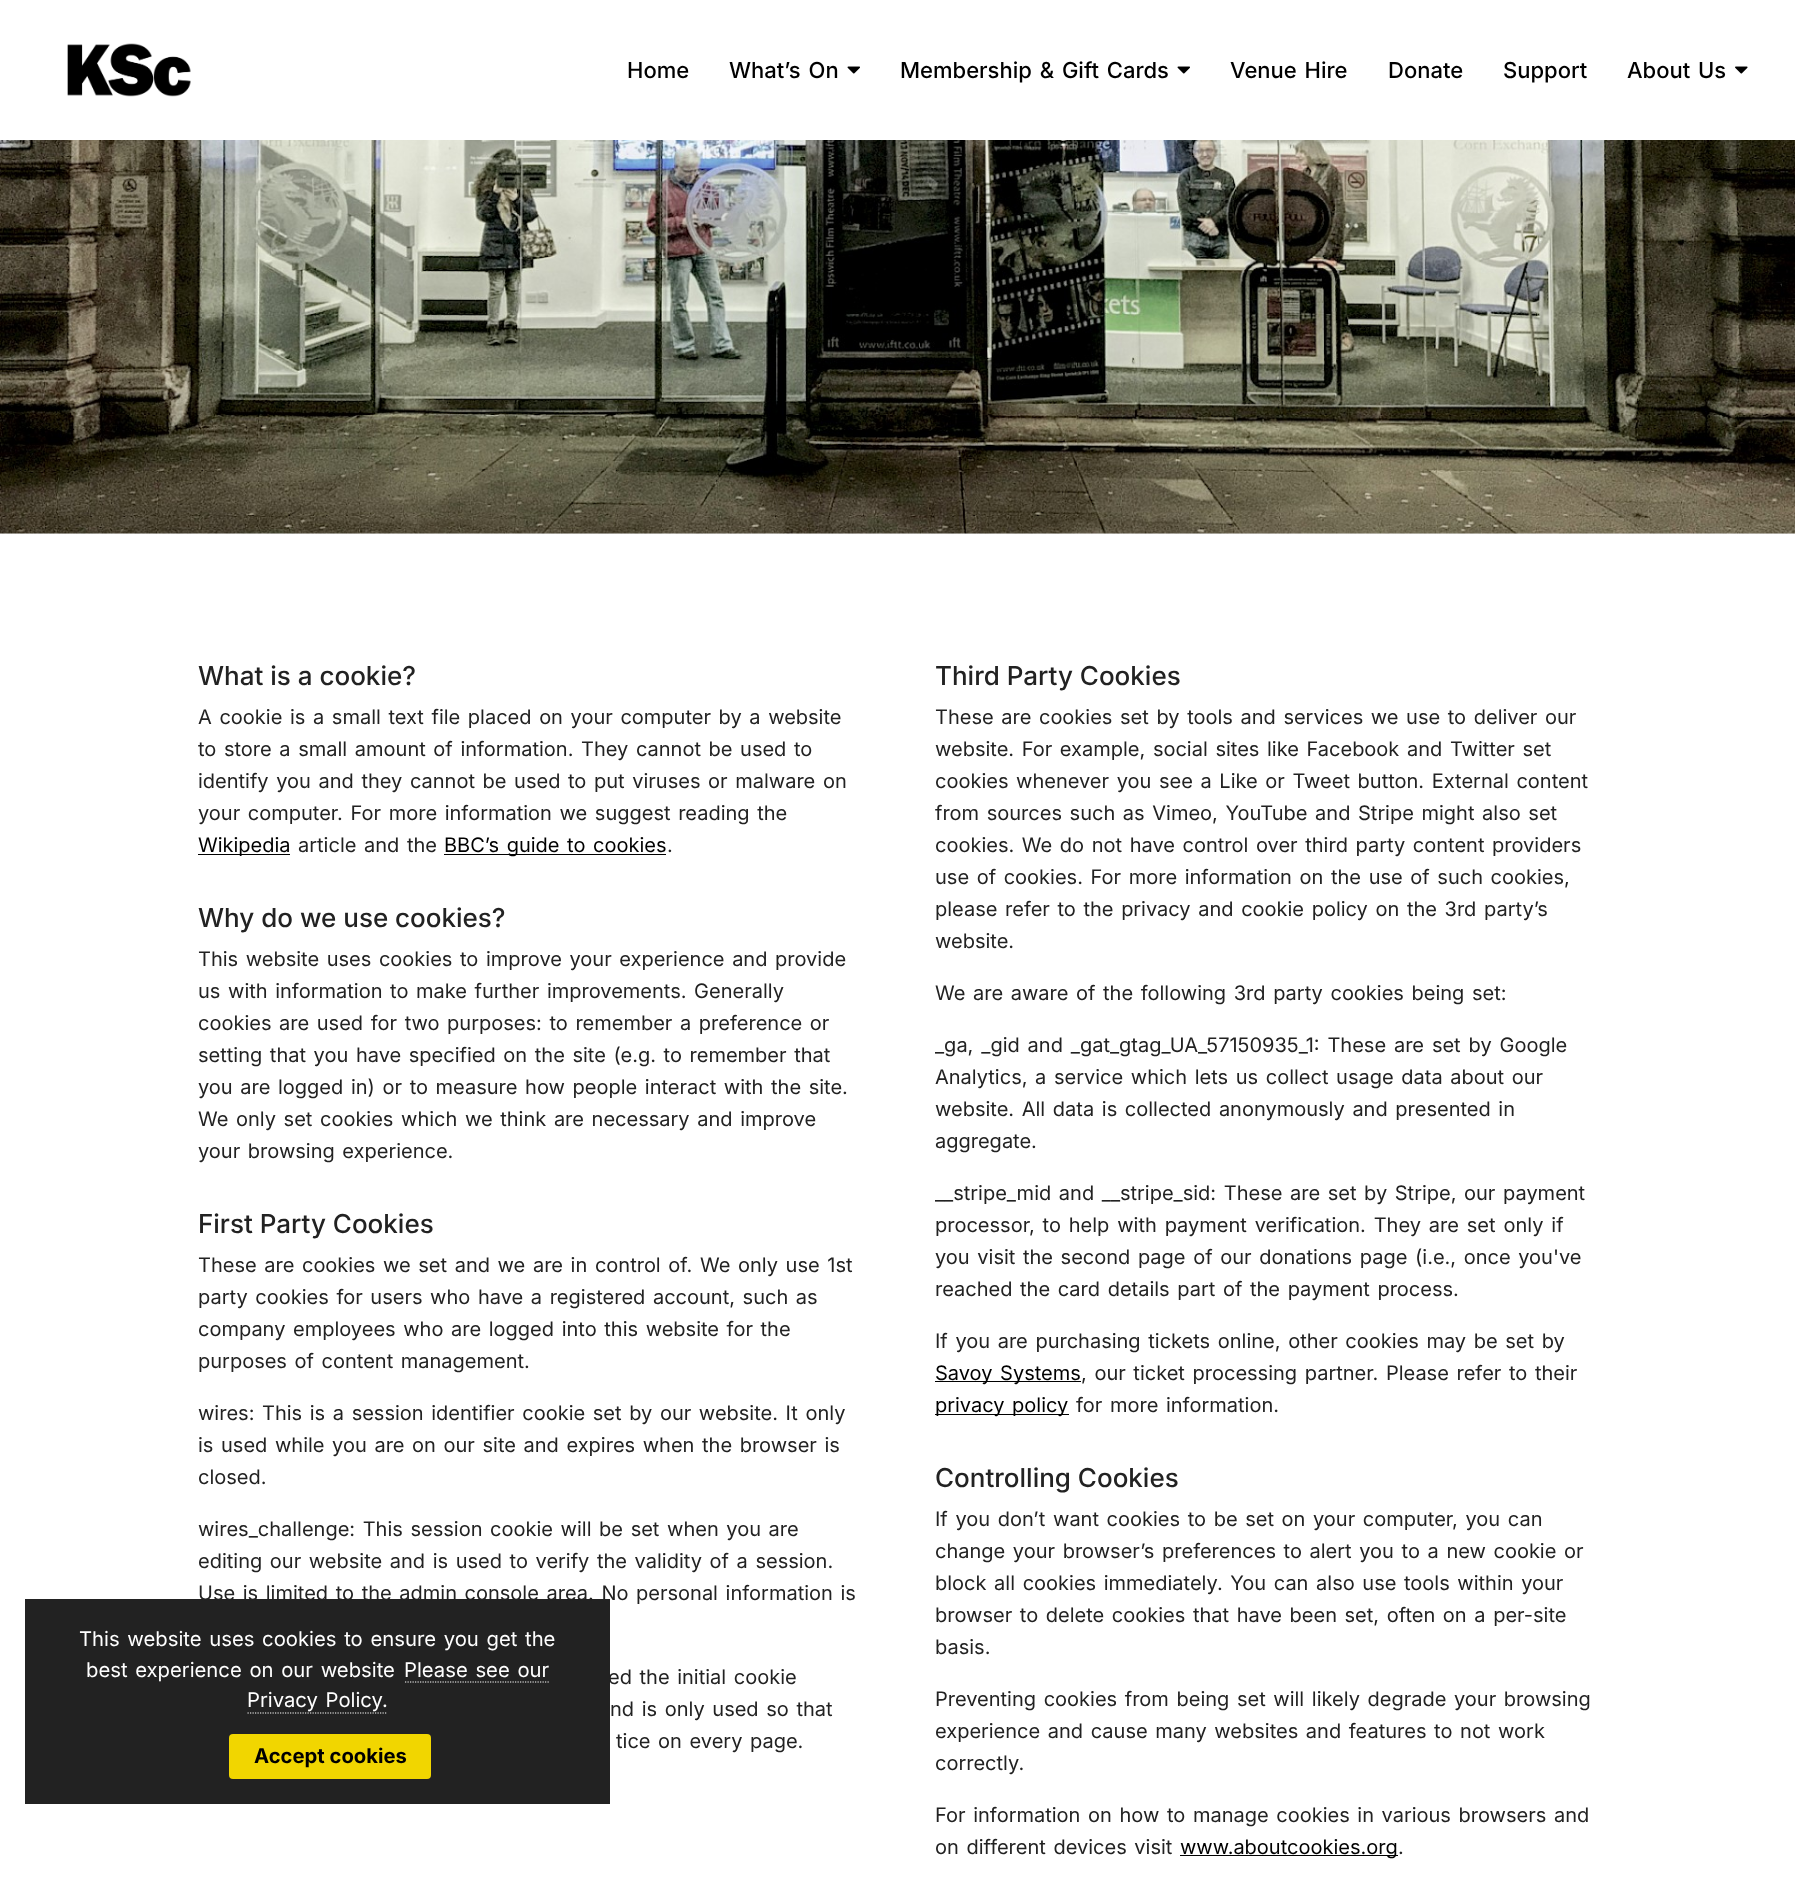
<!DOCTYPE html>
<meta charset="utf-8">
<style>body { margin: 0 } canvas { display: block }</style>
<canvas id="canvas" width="1795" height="1878"></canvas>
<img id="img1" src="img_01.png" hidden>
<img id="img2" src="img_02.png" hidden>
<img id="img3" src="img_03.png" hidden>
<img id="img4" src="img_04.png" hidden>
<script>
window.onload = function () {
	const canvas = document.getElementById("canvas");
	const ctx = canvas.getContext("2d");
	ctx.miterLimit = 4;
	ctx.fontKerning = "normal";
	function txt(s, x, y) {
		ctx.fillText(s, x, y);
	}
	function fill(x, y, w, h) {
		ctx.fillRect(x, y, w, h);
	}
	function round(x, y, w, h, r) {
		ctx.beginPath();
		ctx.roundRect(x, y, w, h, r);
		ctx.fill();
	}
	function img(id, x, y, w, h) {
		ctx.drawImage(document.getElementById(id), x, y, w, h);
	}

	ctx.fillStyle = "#FFFFFF";
	fill(0, 0, 1795, 1878);
	img("img1", 67, 43, 124, 54);
	img("img2", 847, 66, 13, 8);
	img("img2", 1177, 66, 13, 8);
	img("img3", 1735, 66, 13, 8);
	ctx.fillStyle = "#EEEEEE";
	fill(0, 533, 1795, 1);
	img("img4", 0, 140, 1795, 394);
	ctx.fillStyle = "#000000";
	fill(198, 854, 92, 1);
	fill(444, 854, 222, 1);
	fill(935, 1381, 146, 1);
	fill(935, 1414, 134, 1);
	fill(1180, 1855, 218, 1);
	ctx.fillStyle = "#222222";
	fill(25, 1599, 585, 205);
	ctx.beginPath();
	ctx.moveTo(405, 1682);
	ctx.lineTo(550, 1682);
	ctx.strokeStyle = "#FFFFFF";
	ctx.lineWidth = 1.2;
	ctx.setLineDash([1.25, 1.25]);
	ctx.stroke();
	ctx.beginPath();
	ctx.moveTo(247.5, 1713);
	ctx.lineTo(387.5, 1713);
	ctx.stroke();
	ctx.fillStyle = "#F1D600";
	round(229, 1734, 202, 45, 4);
	ctx.font = "500 22px Inter";
	ctx.fillStyle = "#000000";
	txt("Home", 627, 78);
	ctx.wordSpacing = "2px";
	txt("What’s On", 729, 78);
	txt("Membership & Gift Cards", 900, 78);
	txt("Venue Hire", 1230, 78);
	ctx.wordSpacing = "0px";
	txt("Donate", 1388, 78);
	txt("Support", 1503, 78);
	ctx.wordSpacing = "2px";
	txt("About Us", 1627, 78);
	ctx.wordSpacing = "0px";
	ctx.font = "500 26px Inter";
	ctx.fillStyle = "#222222";
	txt("What is a cookie?", 198, 685);
	ctx.wordSpacing = "2px";
	ctx.font = "20px Inter";
	txt("A cookie is a small text file placed on your computer by a website", 198, 724);
	txt("to store a small amount of information. They cannot be used to", 198, 756);
	txt("identify you and they cannot be used to put viruses or malware on", 198, 788);
	txt("your computer. For more information we suggest reading the", 198, 820);
	ctx.wordSpacing = "0px";
	ctx.fillStyle = "#000000";
	txt("Wikipedia", 198, 852);
	ctx.wordSpacing = "2px";
	ctx.fillStyle = "#222222";
	txt("article and the", 298, 852);
	ctx.fillStyle = "#000000";
	txt("BBC’s guide to cookies", 444, 852);
	ctx.wordSpacing = "0px";
	ctx.fillStyle = "#222222";
	txt(".", 667, 852);
	ctx.font = "500 26px Inter";
	txt("Why do we use cookies?", 198, 927);
	ctx.wordSpacing = "2px";
	ctx.font = "20px Inter";
	txt("This website uses cookies to improve your experience and provide", 198, 966);
	txt("us with information to make further improvements. Generally", 198, 998);
	txt("cookies are used for two purposes: to remember a preference or", 198, 1030);
	txt("setting that you have specified on the site (e.g. to remember that", 198, 1062);
	txt("you are logged in) or to measure how people interact with the site.", 198, 1094);
	txt("We only set cookies which we think are necessary and improve", 198, 1126);
	txt("your browsing experience.", 198, 1158);
	ctx.wordSpacing = "0px";
	ctx.font = "500 26px Inter";
	txt("First Party Cookies", 198, 1233);
	ctx.wordSpacing = "2px";
	ctx.font = "20px Inter";
	txt("These are cookies we set and we are in control of. We only use 1st", 198, 1272);
	txt("party cookies for users who have a registered account, such as", 198, 1304);
	txt("company employees who are logged into this website for the", 198, 1336);
	txt("purposes of content management.", 198, 1368);
	txt("wires: This is a session identifier cookie set by our website. It only", 198, 1420);
	txt("is used while you are on our site and expires when the browser is", 198, 1452);
	ctx.wordSpacing = "0px";
	txt("closed.", 198, 1484);
	ctx.wordSpacing = "2px";
	txt("wires_challenge: This session cookie will be set when you are", 198, 1536);
	txt("editing our website and is used to verify the validity of a session.", 198, 1568);
	txt("Use is limited to the admin console area. No personal information is", 198, 1600);
	txt("ed the initial cookie", 608, 1684);
	txt("nd is only used so that", 610, 1716);
	txt("tice on every page.", 616, 1748);
	ctx.wordSpacing = "0px";
	ctx.font = "500 26px Inter";
	txt("Third Party Cookies", 935, 685);
	ctx.wordSpacing = "2px";
	ctx.font = "20px Inter";
	txt("These are cookies set by tools and services we use to deliver our", 935, 724);
	txt("website. For example, social sites like Facebook and Twitter set", 935, 756);
	txt("cookies whenever you see a Like or Tweet button. External content", 935, 788);
	txt("from sources such as Vimeo, YouTube and Stripe might also set", 935, 820);
	txt("cookies. We do not have control over third party content providers", 935, 852);
	txt("use of cookies. For more information on the use of such cookies,", 935, 884);
	txt("please refer to the privacy and cookie policy on the 3rd party’s", 935, 916);
	ctx.wordSpacing = "0px";
	txt("website.", 935, 948);
	ctx.wordSpacing = "2px";
	txt("We are aware of the following 3rd party cookies being set:", 935, 1000);
	ctx.wordSpacing = "2.25px";
	txt("_ga, _gid and _gat_gtag_UA_57150935_1: These are set by Google", 935, 1052);
	ctx.wordSpacing = "2px";
	txt("Analytics, a service which lets us collect usage data about our", 935, 1084);
	txt("website. All data is collected anonymously and presented in", 935, 1116);
	ctx.wordSpacing = "0px";
	txt("aggregate.", 935, 1148);
	ctx.wordSpacing = "2px";
	txt("__stripe_mid and __stripe_sid: These are set by Stripe, our payment", 935, 1200);
	ctx.wordSpacing = "2.25px";
	txt("processor, to help with payment verification. They are set only if", 935, 1232);
	ctx.wordSpacing = "2px";
	txt("you visit the second page of our donations page (i.e., once you've", 935, 1264);
	txt("reached the card details part of the payment process.", 935, 1296);
	txt("If you are purchasing tickets online, other cookies may be set by", 935, 1348);
	ctx.fillStyle = "#000000";
	txt("Savoy Systems", 935, 1380);
	ctx.fillStyle = "#222222";
	txt(", our ticket processing partner. Please refer to their", 1081, 1380);
	ctx.fillStyle = "#000000";
	txt("privacy policy", 935, 1412);
	ctx.fillStyle = "#222222";
	txt("for more information.", 1076, 1412);
	ctx.wordSpacing = "0px";
	ctx.font = "500 26px Inter";
	txt("Controlling Cookies", 935, 1487);
	ctx.wordSpacing = "2px";
	ctx.font = "20px Inter";
	txt("If you don’t want cookies to be set on your computer, you can", 935, 1526);
	txt("change your browser’s preferences to alert you to a new cookie or", 935, 1558);
	txt("block all cookies immediately. You can also use tools within your", 935, 1590);
	txt("browser to delete cookies that have been set, often on a per-site", 935, 1622);
	ctx.wordSpacing = "0px";
	txt("basis.", 935, 1654);
	ctx.wordSpacing = "2px";
	txt("Preventing cookies from being set will likely degrade your browsing", 935, 1706);
	txt("experience and cause many websites and features to not work", 935, 1738);
	ctx.wordSpacing = "0px";
	txt("correctly.", 935, 1770);
	ctx.wordSpacing = "2px";
	txt("For information on how to manage cookies in various browsers and", 935, 1822);
	txt("on different devices visit", 935, 1854);
	ctx.wordSpacing = "0px";
	ctx.fillStyle = "#000000";
	txt("www.aboutcookies.org", 1180, 1854);
	ctx.fillStyle = "#222222";
	txt(".", 1398, 1854);
	ctx.wordSpacing = "2px";
	ctx.font = "20.25px Inter";
	ctx.fillStyle = "#FFFFFF";
	txt("This website uses cookies to ensure you get the", 79, 1646);
	txt("best experience on our website", 86, 1677);
	txt("Please see our", 404, 1677);
	txt("Privacy Policy.", 247, 1707);
	ctx.wordSpacing = "0px";
	ctx.font = "bold 20.25px Inter";
	ctx.fillStyle = "#000000";
	txt("Accept cookies", 254, 1763);
};
</script>
